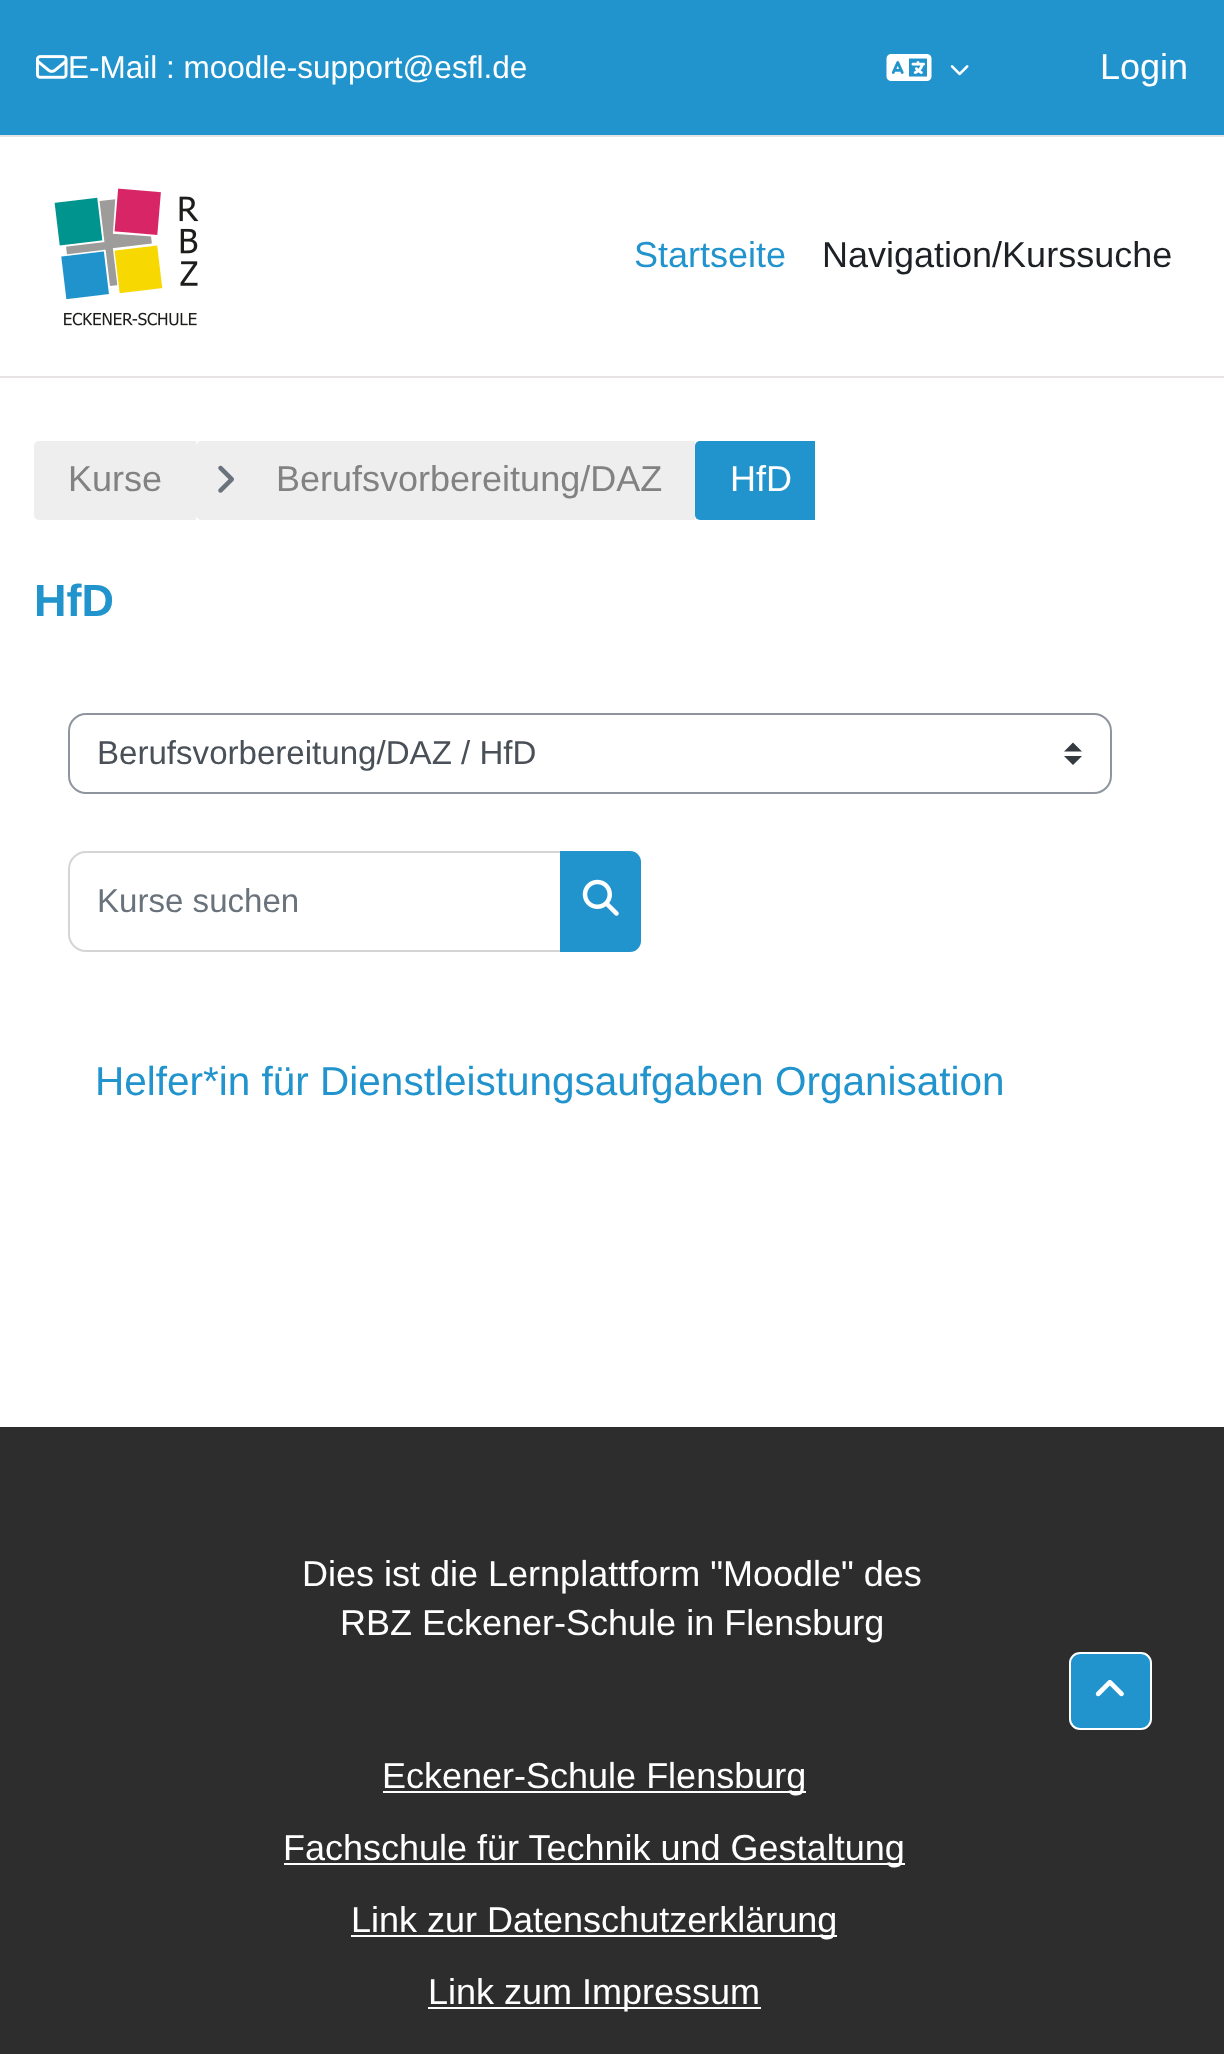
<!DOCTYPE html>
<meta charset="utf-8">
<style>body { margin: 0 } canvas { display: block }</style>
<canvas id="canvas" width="1224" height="2054"></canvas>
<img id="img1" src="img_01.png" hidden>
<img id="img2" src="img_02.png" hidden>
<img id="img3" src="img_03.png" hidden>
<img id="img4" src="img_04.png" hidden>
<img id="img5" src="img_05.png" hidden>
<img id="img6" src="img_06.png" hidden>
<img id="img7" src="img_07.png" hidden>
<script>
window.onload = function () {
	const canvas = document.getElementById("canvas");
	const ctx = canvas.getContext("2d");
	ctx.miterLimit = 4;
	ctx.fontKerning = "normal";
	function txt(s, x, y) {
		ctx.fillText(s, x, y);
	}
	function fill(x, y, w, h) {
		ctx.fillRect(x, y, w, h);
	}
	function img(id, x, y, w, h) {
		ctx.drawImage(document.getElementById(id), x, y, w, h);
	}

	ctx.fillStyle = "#FFFFFF";
	fill(0, 0, 1224, 2054);
	ctx.fillStyle = "#2294CD";
	fill(0, 0, 1224, 135);
	ctx.fillStyle = "#E8E3E3";
	fill(0, 135, 1224, 2);
	img("img1", 36, 55, 32, 24);
	img("img2", 886, 54, 46, 27);
	img("img3", 950, 65, 19, 11);
	fill(0, 376, 1224, 2);
	img("img4", 54, 188, 145, 138);
	ctx.fillStyle = "#EEEEEE";
	ctx.beginPath();
	ctx.roundRect(34, 441, 162, 79, [5, 0, 0, 5]);
	ctx.fill();
	ctx.beginPath();
	ctx.roundRect(196, 441, 499, 79, [5, 0, 0, 5]);
	ctx.fill();
	img("img5", 218, 465, 16, 28);
	ctx.fillStyle = "#2294CD";
	ctx.beginPath();
	ctx.roundRect(695, 441, 120, 79, [5, 0, 0, 5]);
	ctx.fill();
	ctx.fillStyle = "#343A40";
	ctx.beginPath();
	ctx.moveTo(1073, 742.5);
	ctx.lineTo(1064, 751.5);
	ctx.lineTo(1082, 751.5);
	ctx.closePath();
	ctx.moveTo(1073, 765);
	ctx.lineTo(1064, 756);
	ctx.lineTo(1082, 756);
	ctx.closePath();
	ctx.fill();
	ctx.beginPath();
	ctx.roundRect(69, 714, 1042, 79, 17);
	ctx.strokeStyle = "#8F959E";
	ctx.lineWidth = 2;
	ctx.stroke();
	ctx.beginPath();
	ctx.roundRect(69, 852, 493, 99, [17, 0, 0, 17]);
	ctx.strokeStyle = "#D5D5D5";
	ctx.stroke();
	ctx.fillStyle = "#2294CD";
	ctx.beginPath();
	ctx.roundRect(560, 851, 81, 101, [0, 11, 11, 0]);
	ctx.fill();
	img("img6", 582, 879, 37, 37);
	ctx.fillStyle = "#2D2D2D";
	fill(0, 1427, 1224, 627);
	ctx.fillStyle = "#FFFFFF";
	fill(383, 1791, 423, 2);
	fill(284, 1863, 621, 2);
	fill(351, 1935, 486, 2);
	fill(428, 2007, 333, 2);
	ctx.fillStyle = "#2294CD";
	ctx.beginPath();
	ctx.roundRect(1070, 1653, 81, 76, 10);
	ctx.fill();
	ctx.strokeStyle = "#FFFFFF";
	ctx.stroke();
	img("img7", 1095, 1679, 29, 18);
	ctx.font = "31.5px Liberation Sans";
	ctx.fillStyle = "#FFFFFF";
	txt("E-Mail : moodle-support@esfl.de", 68, 78);
	ctx.font = "36px Liberation Sans";
	txt("Login", 1100, 79);
	ctx.fillStyle = "#2294CD";
	txt("Startseite", 634, 267);
	ctx.fillStyle = "#1D2125";
	txt("Navigation/Kurssuche", 822, 267);
	ctx.fillStyle = "#828282";
	txt("Kurse", 68, 491);
	txt("Berufsvorbereitung/DAZ", 276, 491);
	ctx.fillStyle = "#FFFFFF";
	txt("HfD", 730, 491);
	ctx.font = "bold 45px Liberation Sans";
	ctx.fillStyle = "#2294CD";
	txt("HfD", 34, 616);
	ctx.font = "33.1px Liberation Sans";
	ctx.fillStyle = "#495057";
	txt("Berufsvorbereitung/DAZ / HfD", 97, 764);
	ctx.fillStyle = "#6A737B";
	txt("Kurse suchen", 97, 912);
	ctx.font = "40.5px Liberation Sans";
	ctx.fillStyle = "#2294CD";
	txt("Helfer*in für Dienstleistungsaufgaben Organisation", 95, 1095);
	ctx.font = "36px Liberation Sans";
	ctx.fillStyle = "#FFFFFF";
	txt("Dies ist die Lernplattform \"Moodle\" des", 302, 1586);
	txt("RBZ Eckener-Schule in Flensburg", 340, 1635);
	txt("Eckener-Schule Flensburg", 382, 1788);
	txt("Fachschule für Technik und Gestaltung", 283, 1860);
	txt("Link zur Datenschutzerklärung", 351, 1932);
	txt("Link zum Impressum", 428, 2004);
};
</script>
